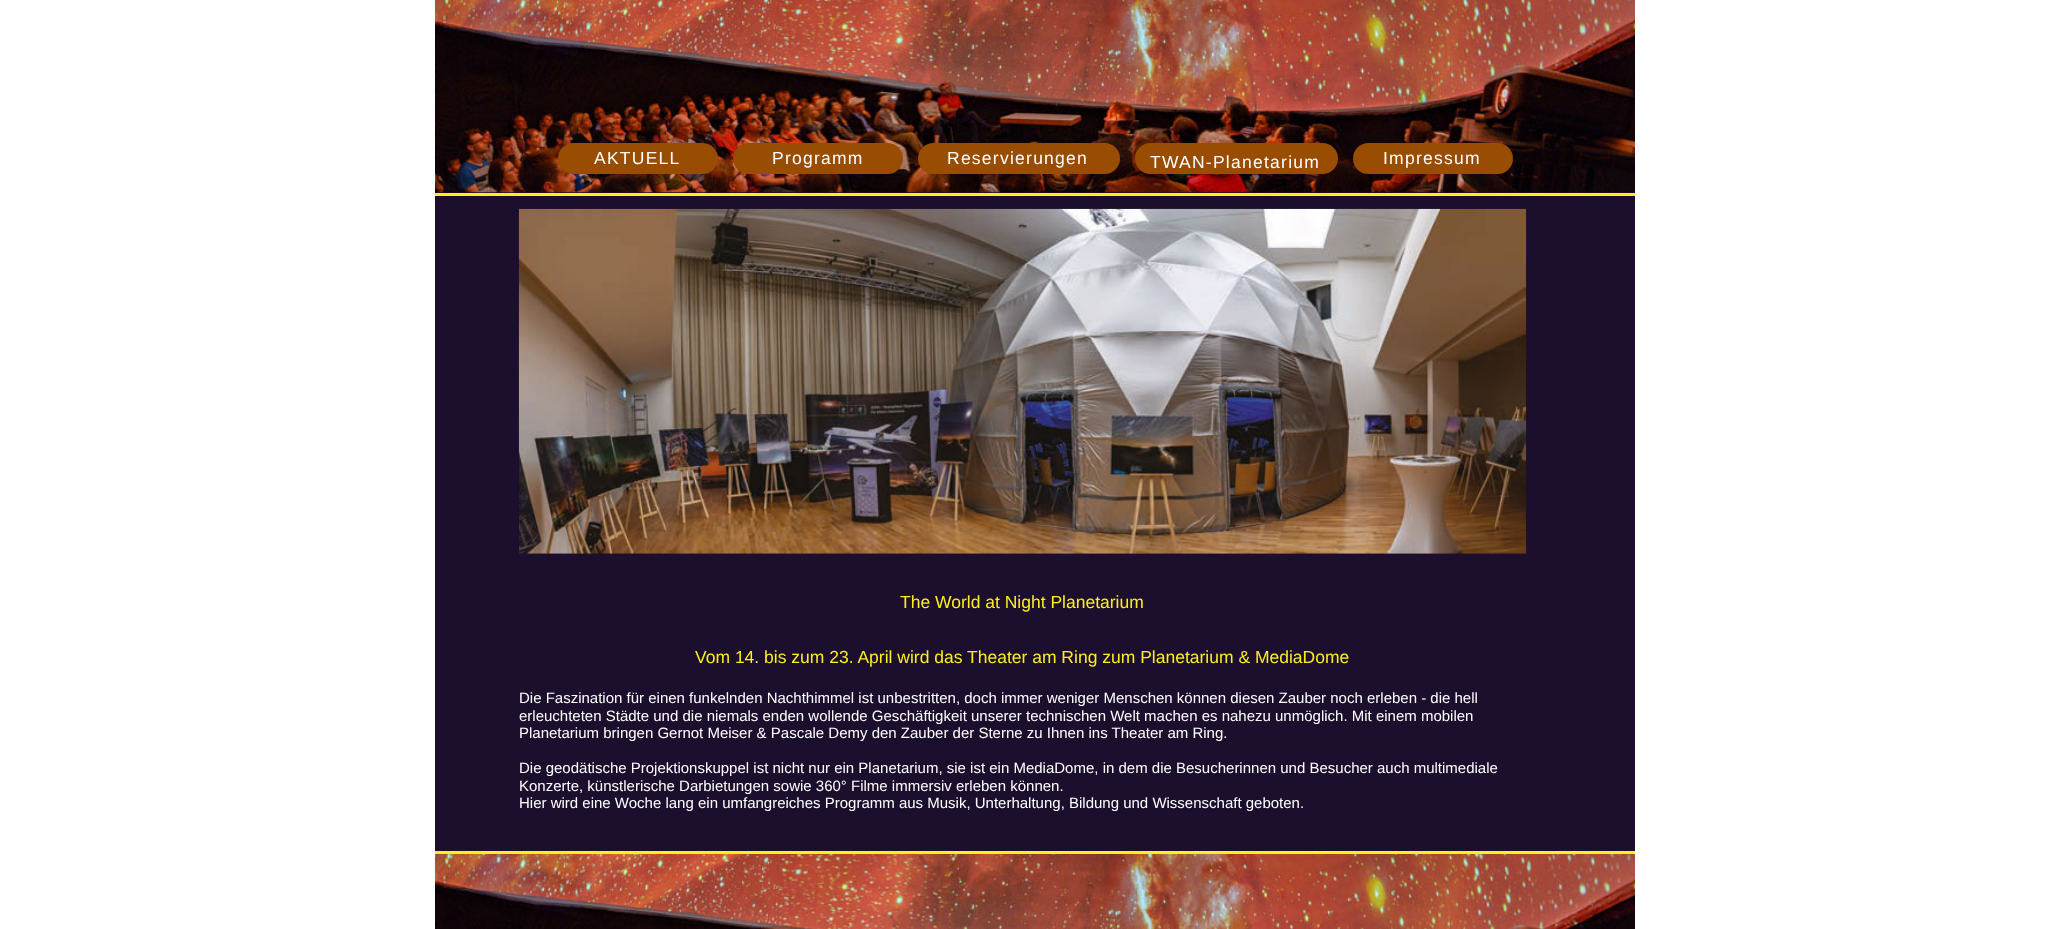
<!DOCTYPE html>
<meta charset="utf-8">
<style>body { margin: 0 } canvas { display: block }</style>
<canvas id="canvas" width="2070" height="929"></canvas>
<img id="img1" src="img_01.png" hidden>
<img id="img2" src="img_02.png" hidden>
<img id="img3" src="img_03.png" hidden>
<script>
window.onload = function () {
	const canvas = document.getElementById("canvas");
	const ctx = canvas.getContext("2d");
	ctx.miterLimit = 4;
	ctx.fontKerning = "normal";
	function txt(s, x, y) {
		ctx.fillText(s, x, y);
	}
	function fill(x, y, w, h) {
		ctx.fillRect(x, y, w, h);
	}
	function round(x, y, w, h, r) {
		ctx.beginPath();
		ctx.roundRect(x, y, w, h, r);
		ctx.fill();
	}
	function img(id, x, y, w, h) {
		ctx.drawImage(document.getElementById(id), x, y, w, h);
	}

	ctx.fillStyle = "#FFFFFF";
	fill(0, 0, 2070, 929);
	ctx.fillStyle = "#1B0F2D";
	fill(435, 192, 1200, 659);
	img("img1", 435, 0, 1200, 193);
	ctx.fillStyle = "#994D03";
	round(558, 143, 160, 31, 15.5);
	round(733, 143, 170, 31, 15.5);
	round(918, 143, 202, 31, 15.5);
	round(1135, 143, 203, 31, 15.5);
	round(1353, 143, 160, 31, 15.5);
	ctx.fillStyle = "#FCEE21";
	fill(435, 193, 1200, 3);
	img("img2", 518, 208, 1009, 346);
	fill(435, 851, 1200, 3);
	img("img3", 435, 854, 1200, 75);
	ctx.letterSpacing = "1.25px";
	ctx.font = "17.5px Liberation Sans";
	ctx.fillStyle = "#FFFFFF";
	txt("AKTUELL", 594, 164);
	txt("Programm", 772, 164);
	txt("Reservierungen", 947, 164);
	txt("TWAN-Planetarium", 1150, 168);
	txt("Impressum", 1383, 164);
	ctx.letterSpacing = "0px";
	ctx.fillStyle = "#FCEE21";
	txt("The World at Night Planetarium", 900, 608);
	txt("Vom 14. bis zum 23. April wird das Theater am Ring zum Planetarium & MediaDome", 695, 663);
	ctx.font = "15px Liberation Sans";
	ctx.fillStyle = "#FFFFFF";
	txt("Die Faszination für einen funkelnden Nachthimmel ist unbestritten, doch immer weniger Menschen können diesen Zauber noch erleben - die hell", 519, 703);
	txt("erleuchteten Städte und die niemals enden wollende Geschäftigkeit unserer technischen Welt machen es nahezu unmöglich. Mit einem mobilen", 519, 721);
	txt("Planetarium bringen Gernot Meiser & Pascale Demy den Zauber der Sterne zu Ihnen ins Theater am Ring.", 519, 738);
	txt("Die geodätische Projektionskuppel ist nicht nur ein Planetarium, sie ist ein MediaDome, in dem die Besucherinnen und Besucher auch multimediale", 519, 773);
	txt("Konzerte, künstlerische Darbietungen sowie 360° Filme immersiv erleben können.", 519, 791);
	txt("Hier wird eine Woche lang ein umfangreiches Programm aus Musik, Unterhaltung, Bildung und Wissenschaft geboten.", 519, 808);
};
</script>
